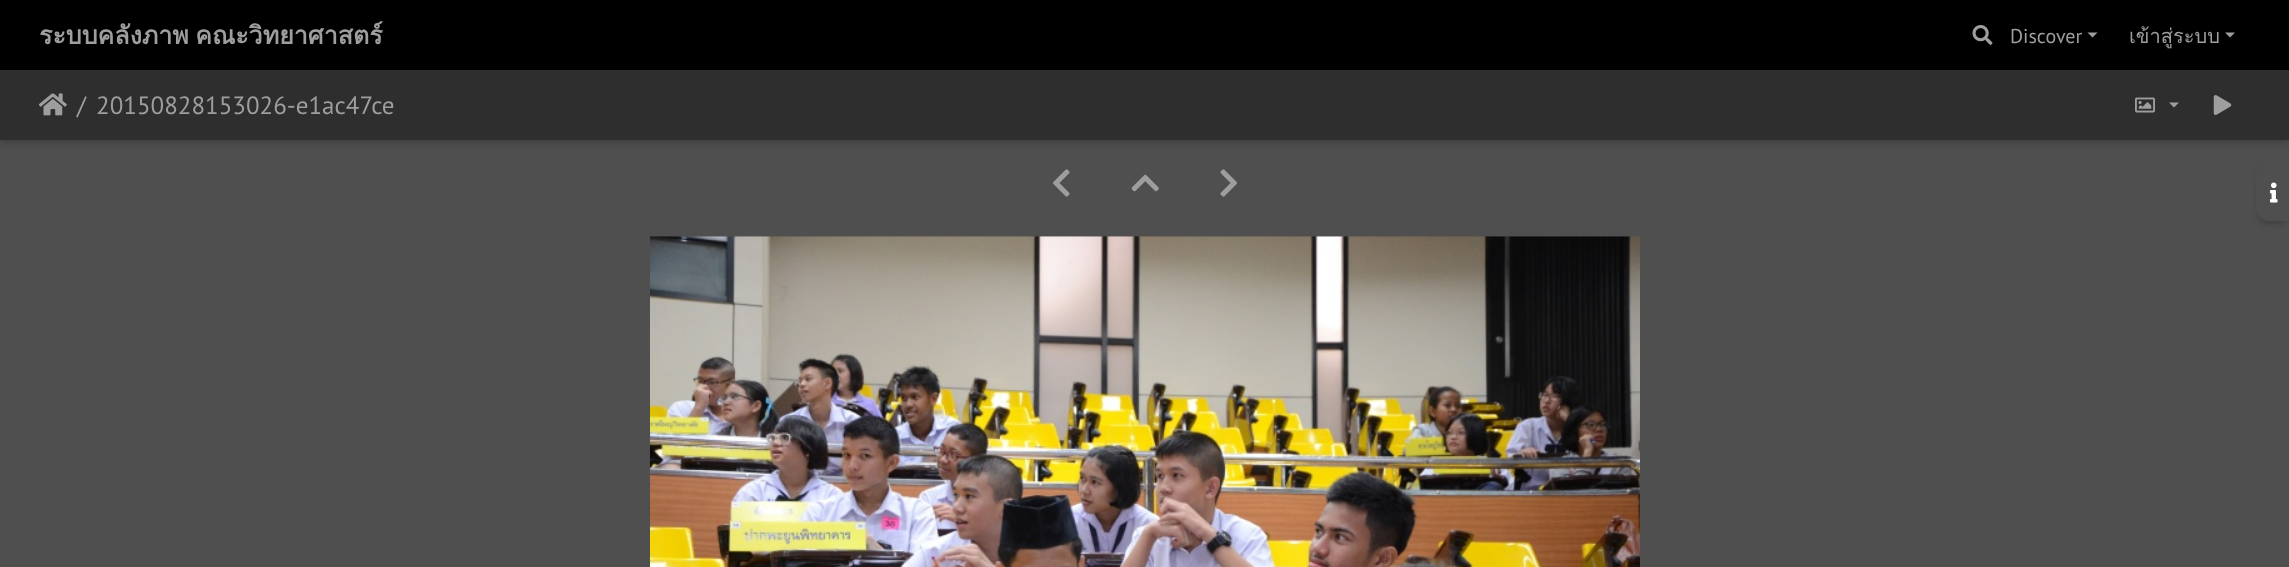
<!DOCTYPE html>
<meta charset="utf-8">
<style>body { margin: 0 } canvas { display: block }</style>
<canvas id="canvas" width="2289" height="567"></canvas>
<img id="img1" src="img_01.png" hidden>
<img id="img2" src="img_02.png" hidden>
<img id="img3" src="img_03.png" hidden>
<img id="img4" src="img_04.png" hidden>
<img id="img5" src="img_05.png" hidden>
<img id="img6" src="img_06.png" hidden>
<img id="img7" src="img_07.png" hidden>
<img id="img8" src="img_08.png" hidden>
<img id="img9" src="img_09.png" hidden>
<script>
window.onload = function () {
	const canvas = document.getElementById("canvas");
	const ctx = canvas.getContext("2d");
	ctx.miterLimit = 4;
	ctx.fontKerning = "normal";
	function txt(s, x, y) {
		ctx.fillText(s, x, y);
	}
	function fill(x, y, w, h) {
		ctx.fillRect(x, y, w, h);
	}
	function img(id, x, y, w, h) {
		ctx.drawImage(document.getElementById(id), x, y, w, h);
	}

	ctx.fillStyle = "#4F4F4F";
	fill(0, 0, 2289, 567);
	ctx.fillStyle = "rgba(0, 0, 0, 0.2)";
	ctx.filter = "blur(3px)";
	ctx.beginPath();
	ctx.rect(1, 75, 2288, 68);
	ctx.fill();
	ctx.filter = "none";
	ctx.fillStyle = "#000000";
	fill(0, 0, 2289, 70);
	img("img1", 1972, 25, 21, 20);
	ctx.fillStyle = "#9E9E9E";
	ctx.beginPath();
	ctx.moveTo(2087.5, 32.5);
	ctx.lineTo(2097.5, 32.5);
	ctx.lineTo(2092.5, 37.5);
	ctx.closePath();
	ctx.fill();
	ctx.beginPath();
	ctx.moveTo(2225, 32.5);
	ctx.lineTo(2235, 32.5);
	ctx.lineTo(2230, 37.5);
	ctx.closePath();
	ctx.fill();
	ctx.fillStyle = "#2E2E2E";
	fill(0, 70, 2289, 70);
	img("img2", 39, 93, 28, 23);
	img("img3", 2135, 97, 20, 16);
	ctx.fillStyle = "#9E9E9E";
	ctx.beginPath();
	ctx.moveTo(2169, 102.5);
	ctx.lineTo(2179, 102.5);
	ctx.lineTo(2174, 107.5);
	ctx.closePath();
	ctx.fill();
	img("img4", 2213, 95, 19, 20);
	img("img5", 1053, 169, 17, 28);
	img("img6", 1131, 174, 28, 18);
	img("img7", 1220, 169, 17, 28);
	ctx.fillStyle = "rgba(0, 0, 0, 0.2)";
	ctx.filter = "blur(3px)";
	ctx.beginPath();
	ctx.roundRect(2258, 169, 31, 55, 11);
	ctx.fill();
	ctx.filter = "none";
	ctx.fillStyle = "#4F4F4F";
	ctx.beginPath();
	ctx.moveTo(2269, 164);
	ctx.lineTo(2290, 164);
	ctx.lineTo(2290, 221);
	ctx.lineTo(2269, 221);
	ctx.bezierCurveTo(2262, 221, 2256, 215, 2256, 208);
	ctx.lineTo(2256, 177);
	ctx.bezierCurveTo(2256, 170, 2262, 164, 2269, 164);
	ctx.closePath();
	ctx.fill();
	ctx.beginPath();
	ctx.moveTo(2269, 164);
	ctx.lineTo(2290, 164);
	ctx.lineTo(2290, 221);
	ctx.lineTo(2269, 221);
	ctx.bezierCurveTo(2262, 221, 2256, 216, 2256, 209);
	ctx.lineTo(2256, 176);
	ctx.bezierCurveTo(2256, 169, 2262, 164, 2269, 164);
	ctx.closePath();
	ctx.moveTo(2269, 165);
	ctx.lineTo(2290, 165);
	ctx.lineTo(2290, 220);
	ctx.lineTo(2269, 220);
	ctx.bezierCurveTo(2263, 220, 2258, 215, 2258, 209);
	ctx.lineTo(2258, 176);
	ctx.bezierCurveTo(2258, 170, 2263, 165, 2269, 165);
	ctx.closePath();
	ctx.fill("evenodd");
	img("img8", 2270, 182, 8, 21);
	img("img9", 650, 236, 990, 331);
	ctx.wordSpacing = "-2px";
	ctx.font = "bold 25px Loma";
	ctx.fillStyle = "#9E9E9E";
	txt("ระบบคลังภาพ คณะวิทยาศาสตร์", 39, 44);
	ctx.wordSpacing = "0px";
	ctx.font = "20px PT Sans";
	txt("Discover", 2010, 43);
	ctx.font = "20px Loma";
	txt("เข้าสู่ระบบ", 2129, 43);
	ctx.font = "25px PT Sans";
	txt("/", 77, 114);
	txt("20150828153026-e1ac47ce", 96, 114);
};
</script>
